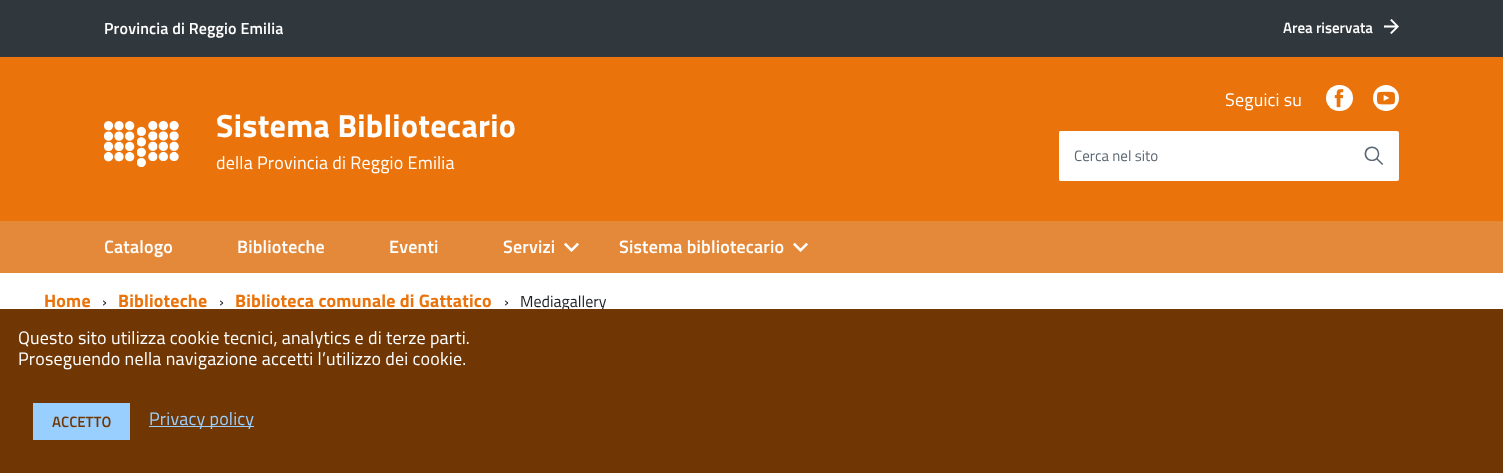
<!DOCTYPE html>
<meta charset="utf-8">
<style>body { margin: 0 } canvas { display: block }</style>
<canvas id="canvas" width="1503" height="473"></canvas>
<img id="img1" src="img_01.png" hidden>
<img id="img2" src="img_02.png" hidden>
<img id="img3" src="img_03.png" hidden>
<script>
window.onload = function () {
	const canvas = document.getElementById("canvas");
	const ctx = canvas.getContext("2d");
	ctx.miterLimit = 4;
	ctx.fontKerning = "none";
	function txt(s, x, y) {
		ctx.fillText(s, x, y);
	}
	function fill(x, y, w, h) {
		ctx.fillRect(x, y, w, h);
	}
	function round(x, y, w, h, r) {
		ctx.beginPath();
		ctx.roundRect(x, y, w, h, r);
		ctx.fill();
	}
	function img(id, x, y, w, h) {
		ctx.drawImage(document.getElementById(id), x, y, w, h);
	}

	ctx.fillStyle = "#FFFFFF";
	fill(0, 0, 1503, 473);
	ctx.fillStyle = "#30373D";
	fill(0, 0, 1503, 57);
	ctx.fillStyle = "#EA730B";
	fill(0, 57, 1503, 164);
	img("img1", 104, 120, 75, 47);
	ctx.fillStyle = "#FFFFFF";
	round(1326, 85, 27, 26, 13);
	img("img2", 1334, 89, 10, 19);
	ctx.beginPath();
	ctx.arc(1386, 98, 13, 0, Math.PI * 2);
	ctx.fill();
	img("img3", 1377, 91, 18, 14);
	round(1059, 131, 340, 50, 2);
	round(1059, 131, 290, 50, 2);
	ctx.fillStyle = "#E4893A";
	fill(0, 221, 1503, 52);
	ctx.letterSpacing = "0.15px";
	ctx.font = "600 16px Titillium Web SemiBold";
	ctx.fillStyle = "#FFFFFF";
	txt("Provincia di Reggio Emilia", 104, 34);
	ctx.letterSpacing = "0px";
	ctx.font = "600 15px Titillium Web SemiBold";
	txt("Area riservata", 1283, 33);
	ctx.font = "15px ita";
	txt("⟶", 1384, 33);
	ctx.letterSpacing = "0.3px";
	ctx.font = "bold 32px Titillium Web";
	txt("Sistema Bibliotecario", 216, 137);
	ctx.letterSpacing = "0.18px";
	ctx.font = "18px Titillium Web";
	txt("della Provincia di Reggio Emilia", 216, 169);
	txt("Seguici su", 1225, 106);
	ctx.letterSpacing = "0px";
	ctx.font = "bold 18px ita";
	ctx.fillStyle = "#5A6772";
	ctx.save();
	ctx.translate(1382, 165);
	ctx.rotate(-90 * Math.PI / 180);
	ctx.fillText("🔍", 0, 0);
	ctx.restore();
	ctx.font = "15px Titillium Web";
	txt("Cerca nel sito", 1074, 161);
	ctx.letterSpacing = "0.18px";
	ctx.font = "600 18px Titillium Web SemiBold";
	ctx.fillStyle = "#FFFFFF";
	txt("Catalogo", 104, 253);
	txt("Biblioteche", 237, 253);
	txt("Eventi", 389, 253);
	txt("Servizi", 503, 253);
	ctx.font = "15px ita";
	txt("⏶", 564, 254);
	ctx.font = "600 18px Titillium Web SemiBold";
	txt("Sistema bibliotecario", 619, 253);
	ctx.font = "15px ita";
	txt("⏶", 793, 254);
	ctx.font = "bold 18px Titillium Web";
	ctx.fillStyle = "#EA730B";
	txt("Home", 44, 307);
	ctx.letterSpacing = "0px";
	ctx.font = "16px Titillium Web";
	ctx.fillStyle = "#1C2024";
	txt("›", 102, 307);
	ctx.letterSpacing = "0.18px";
	ctx.font = "bold 18px Titillium Web";
	ctx.fillStyle = "#EA730B";
	txt("Biblioteche", 118, 307);
	ctx.letterSpacing = "0px";
	ctx.font = "16px Titillium Web";
	ctx.fillStyle = "#1C2024";
	txt("›", 219, 307);
	ctx.letterSpacing = "0.18px";
	ctx.font = "bold 18px Titillium Web";
	ctx.fillStyle = "#EA730B";
	txt("Biblioteca comunale di Gattatico", 235, 307);
	ctx.letterSpacing = "0px";
	ctx.font = "16px Titillium Web";
	ctx.fillStyle = "#1C2024";
	txt("›", 504, 307);
	txt("Mediagallery", 520, 307);
	ctx.fillStyle = "#703705";
	fill(0, 309, 1503, 164);
	ctx.letterSpacing = "0.18px";
	ctx.font = "18px Titillium Web";
	ctx.fillStyle = "#FFFFFF";
	txt("Questo sito utilizza cookie tecnici, analytics e di terze parti.", 18, 344);
	txt("Proseguendo nella navigazione accetti l’utilizzo dei cookie.", 18, 365);
	ctx.fillStyle = "#99CFFF";
	fill(33, 403, 97, 37);
	ctx.letterSpacing = "0px";
	ctx.font = "600 15px Titillium Web SemiBold";
	ctx.fillStyle = "#703705";
	txt("ACCETTO", 52, 427);
	ctx.fillStyle = "#99CFFF";
	fill(149, 426, 105, 1);
	ctx.letterSpacing = "0.18px";
	ctx.font = "18px Titillium Web";
	txt("Privacy policy", 149, 425);
};
</script>
